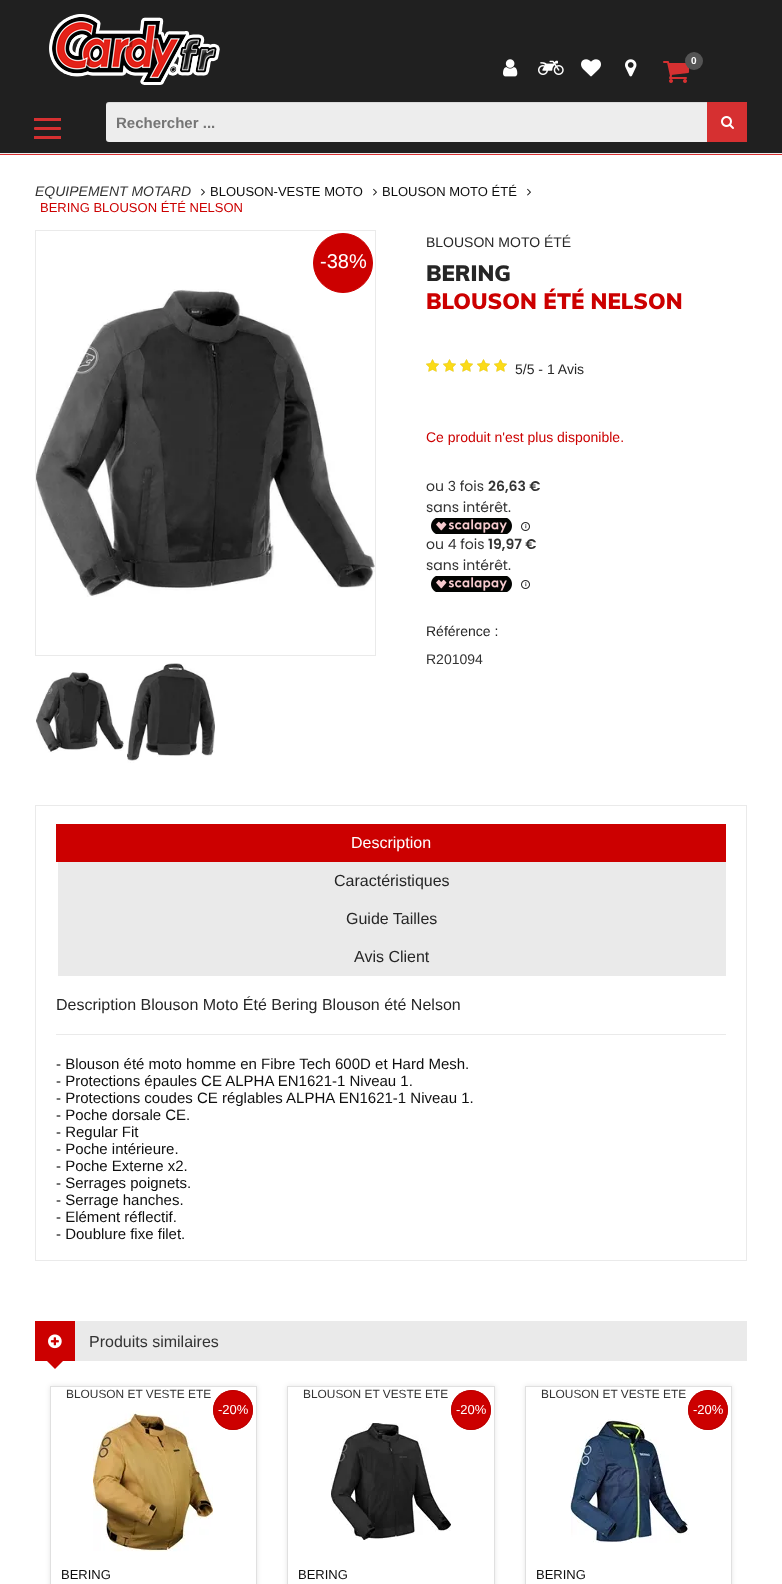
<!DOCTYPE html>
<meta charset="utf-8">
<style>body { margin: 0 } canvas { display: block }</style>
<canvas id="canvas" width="782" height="1584"></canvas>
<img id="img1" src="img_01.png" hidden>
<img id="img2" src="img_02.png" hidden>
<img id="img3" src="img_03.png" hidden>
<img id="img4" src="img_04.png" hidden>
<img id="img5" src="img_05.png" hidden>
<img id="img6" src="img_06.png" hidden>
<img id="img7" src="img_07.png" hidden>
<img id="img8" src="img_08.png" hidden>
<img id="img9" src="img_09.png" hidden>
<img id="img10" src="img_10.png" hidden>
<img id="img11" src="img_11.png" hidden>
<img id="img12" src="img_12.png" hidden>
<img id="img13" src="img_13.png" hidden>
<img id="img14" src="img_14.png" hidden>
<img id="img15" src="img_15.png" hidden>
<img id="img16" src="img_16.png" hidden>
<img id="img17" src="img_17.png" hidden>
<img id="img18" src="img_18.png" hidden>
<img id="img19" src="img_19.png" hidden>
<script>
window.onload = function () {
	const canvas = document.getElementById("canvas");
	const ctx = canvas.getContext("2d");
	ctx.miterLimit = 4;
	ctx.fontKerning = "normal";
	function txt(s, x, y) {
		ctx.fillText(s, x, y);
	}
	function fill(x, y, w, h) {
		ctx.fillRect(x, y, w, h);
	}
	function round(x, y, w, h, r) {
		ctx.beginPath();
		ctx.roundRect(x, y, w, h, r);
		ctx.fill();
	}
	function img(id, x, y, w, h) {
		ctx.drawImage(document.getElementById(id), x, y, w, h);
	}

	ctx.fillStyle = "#FFFFFF";
	fill(0, 0, 782, 1584);
	ctx.fillStyle = "#202020";
	fill(0, 0, 782, 153);
	img("img1", 49, 14, 171, 71);
	img("img2", 503, 59, 15, 18);
	img("img3", 538, 60, 26, 15);
	img("img4", 581, 59, 20, 18);
	img("img5", 625, 59, 12, 18);
	img("img6", 663, 61, 26, 22);
	ctx.fillStyle = "#545454";
	ctx.beginPath();
	ctx.arc(694, 61, 9, 0, Math.PI * 2);
	ctx.fill();
	ctx.fillStyle = "#EDEDED";
	round(106, 102, 641, 40, 3);
	ctx.fillStyle = "rgba(0, 0, 0, 0.07)";
	ctx.beginPath();
	ctx.moveTo(109, 103);
	ctx.lineTo(744, 103);
	ctx.bezierCurveTo(746, 103, 747, 104, 747, 106);
	ctx.lineTo(747, 105);
	ctx.bezierCurveTo(747, 103, 746, 102, 744, 102);
	ctx.lineTo(109, 102);
	ctx.bezierCurveTo(107, 102, 106, 103, 106, 105);
	ctx.lineTo(106, 106);
	ctx.bezierCurveTo(106, 104, 107, 103, 109, 103);
	ctx.closePath();
	ctx.fill();
	ctx.fillStyle = "#D63031";
	fill(707, 102, 40, 40);
	img("img7", 721, 116, 13, 13);
	ctx.fillStyle = "#EDEDED";
	fill(0, 153, 782, 1);
	ctx.fillStyle = "#D63031";
	fill(0, 154, 782, 1);
	round(34, 127, 27, 3, 1);
	fill(34, 118, 27, 3);
	fill(34, 136, 27, 3);
	img("img8", 201, 188, 4, 8);
	img("img8", 373, 188, 4, 8);
	img("img8", 527, 188, 4, 8);
	ctx.strokeStyle = "#EAEAEA";
	ctx.strokeRect(35.5, 230.5, 340, 425);
	img("img9", 36, 289, 339, 308);
	ctx.fillStyle = "#CC0000";
	ctx.beginPath();
	ctx.arc(343, 263, 29.5, 0, Math.PI * 2);
	ctx.fill();
	ctx.strokeStyle = "#CC0000";
	ctx.stroke();
	img("img10", 36, 672, 88, 81);
	img("img11", 127, 663, 88, 100);
	img("img12", 426, 359, 13, 13);
	img("img12", 443, 359, 13, 13);
	img("img12", 460, 359, 13, 13);
	img("img12", 477, 359, 13, 13);
	img("img12", 494, 359, 13, 13);
	img("img13", 426, 359, 13, 13);
	img("img13", 443, 359, 13, 13);
	img("img13", 460, 359, 13, 13);
	img("img13", 477, 359, 13, 13);
	img("img13", 494, 359, 13, 13);
	img("img14", 431, 518, 81, 16);
	img("img15", 521, 522, 9, 9);
	img("img14", 431, 576, 81, 16);
	img("img15", 521, 580, 9, 9);
	ctx.strokeStyle = "#EAEAEA";
	ctx.strokeRect(35.5, 805.5, 711, 455);
	fill(56, 824, 670, 38);
	ctx.fillStyle = "#EAEAEA";
	fill(58, 862, 668, 114);
	fill(56, 1034, 670, 1);
	fill(75, 1321, 672, 40);
	ctx.fillStyle = "#CC0000";
	fill(35, 1321, 40, 40);
	img("img16", 48, 1334, 14, 15);
	ctx.beginPath();
	ctx.moveTo(47, 1361);
	ctx.lineTo(63, 1361);
	ctx.lineTo(55, 1369);
	ctx.closePath();
	ctx.fill();
	ctx.save();
	ctx.beginPath();
	ctx.moveTo(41, 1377);
	ctx.lineTo(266, 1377);
	ctx.lineTo(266, 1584);
	ctx.lineTo(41, 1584);
	ctx.closePath();
	ctx.moveTo(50, 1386);
	ctx.lineTo(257, 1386);
	ctx.lineTo(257, 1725);
	ctx.lineTo(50, 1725);
	ctx.closePath();
	ctx.clip("evenodd");
	ctx.fillStyle = "rgba(0, 0, 0, 0.1)";
	ctx.filter = "blur(2.5px)";
	ctx.beginPath();
	ctx.rect(50, 1386, 207, 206);
	ctx.fill();
	ctx.filter = "none";
	ctx.restore();
	ctx.strokeStyle = "#E0E0E0";
	ctx.strokeRect(50.5, 1386.5, 206, 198);
	ctx.beginPath();
	ctx.arc(233, 1410, 20, 0, Math.PI * 2);
	ctx.fill();
	ctx.beginPath();
	ctx.arc(233, 1410, 19.5, 0, Math.PI * 2);
	ctx.strokeStyle = "rgba(184, 0, 0, 0.9)";
	ctx.stroke();
	img("img17", 93, 1411, 120, 141);
	ctx.save();
	ctx.beginPath();
	ctx.moveTo(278, 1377);
	ctx.lineTo(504, 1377);
	ctx.lineTo(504, 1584);
	ctx.lineTo(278, 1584);
	ctx.closePath();
	ctx.moveTo(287, 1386);
	ctx.lineTo(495, 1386);
	ctx.lineTo(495, 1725);
	ctx.lineTo(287, 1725);
	ctx.closePath();
	ctx.clip("evenodd");
	ctx.fillStyle = "rgba(0, 0, 0, 0.1)";
	ctx.filter = "blur(2.5px)";
	ctx.beginPath();
	ctx.rect(287, 1386, 208, 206);
	ctx.fill();
	ctx.filter = "none";
	ctx.restore();
	ctx.strokeStyle = "#E0E0E0";
	ctx.strokeRect(287.5, 1386.5, 207, 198);
	ctx.beginPath();
	ctx.arc(471, 1410, 20, 0, Math.PI * 2);
	ctx.fill();
	ctx.beginPath();
	ctx.arc(471, 1410, 19.5, 0, Math.PI * 2);
	ctx.strokeStyle = "rgba(184, 0, 0, 0.9)";
	ctx.stroke();
	img("img18", 331, 1423, 120, 117);
	ctx.save();
	ctx.beginPath();
	ctx.moveTo(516, 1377);
	ctx.lineTo(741, 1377);
	ctx.lineTo(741, 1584);
	ctx.lineTo(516, 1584);
	ctx.closePath();
	ctx.moveTo(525, 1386);
	ctx.lineTo(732, 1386);
	ctx.lineTo(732, 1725);
	ctx.lineTo(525, 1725);
	ctx.closePath();
	ctx.clip("evenodd");
	ctx.fillStyle = "rgba(0, 0, 0, 0.1)";
	ctx.filter = "blur(2.5px)";
	ctx.beginPath();
	ctx.rect(525, 1386, 207, 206);
	ctx.fill();
	ctx.filter = "none";
	ctx.restore();
	ctx.strokeStyle = "#E0E0E0";
	ctx.strokeRect(525.5, 1386.5, 206, 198);
	img("img19", 570, 1419, 119, 124);
	ctx.beginPath();
	ctx.arc(708, 1410, 20, 0, Math.PI * 2);
	ctx.fill();
	ctx.beginPath();
	ctx.arc(708, 1410, 19.5, 0, Math.PI * 2);
	ctx.strokeStyle = "rgba(184, 0, 0, 0.9)";
	ctx.stroke();
	ctx.font = "bold 10px Liberation Sans";
	ctx.fillStyle = "#FFFFFF";
	txt("0", 691, 64);
	ctx.font = "bold 15px Liberation Sans";
	ctx.fillStyle = "#757575";
	txt("Rechercher ...", 116, 128);
	ctx.font = "italic 14px Liberation Sans";
	ctx.fillStyle = "#333333";
	txt("EQUIPEMENT MOTARD", 35, 196);
	ctx.font = "13px Liberation Sans";
	ctx.fillStyle = "#0E0E0E";
	txt("BLOUSON-VESTE MOTO", 210, 196);
	txt("BLOUSON MOTO ÉTÉ", 382, 196);
	ctx.fillStyle = "#CC0000";
	txt("BERING BLOUSON ÉTÉ NELSON", 40, 212);
	ctx.font = "20px Liberation Sans";
	ctx.fillStyle = "#FFFFFF";
	txt("-38%", 320, 268);
	ctx.font = "14px Liberation Sans";
	ctx.fillStyle = "#262626";
	txt("BLOUSON MOTO ÉTÉ", 426, 247);
	ctx.font = "900 22px Muli";
	txt("BERING", 426, 281);
	ctx.fillStyle = "#CC0000";
	txt("BLOUSON ÉTÉ NELSON", 426, 309);
	ctx.font = "14px Liberation Sans";
	ctx.fillStyle = "#262626";
	txt("5/5 - 1 Avis", 515, 374);
	ctx.fillStyle = "#CC0000";
	txt("Ce produit n'est plus disponible.", 426, 442);
	ctx.font = "14px Poppins";
	ctx.fillStyle = "#333333";
	txt("ou 3 fois", 426, 491);
	ctx.font = "600 14px Poppins";
	txt("26,63 €", 488, 491);
	ctx.font = "14px Poppins";
	txt("sans intérêt.", 426, 512);
	txt("ou 4 fois", 426, 549);
	ctx.font = "600 14px Poppins";
	txt("19,97 €", 488, 549);
	ctx.font = "14px Poppins";
	txt("sans intérêt.", 426, 570);
	ctx.font = "14px Liberation Sans";
	ctx.fillStyle = "#262626";
	txt("Référence :", 426, 636);
	ctx.fillStyle = "#333333";
	txt("R201094", 426, 664);
	ctx.font = "16px Liberation Sans";
	ctx.fillStyle = "#FFFFFF";
	txt("Description", 351, 848);
	ctx.fillStyle = "#262626";
	txt("Caractéristiques", 334, 886);
	txt("Guide Tailles", 346, 924);
	txt("Avis Client", 354, 962);
	txt("Description Blouson Moto Été Bering Blouson été Nelson", 56, 1010);
	ctx.font = "15px Liberation Sans";
	ctx.fillStyle = "#0E0E0E";
	txt("- Blouson été moto homme en Fibre Tech 600D et Hard Mesh.", 56, 1069);
	txt("- Protections épaules CE ALPHA EN1621-1 Niveau 1.", 56, 1086);
	txt("- Protections coudes CE réglables ALPHA EN1621-1 Niveau 1.", 56, 1103);
	txt("- Poche dorsale CE.", 56, 1120);
	txt("- Regular Fit", 56, 1137);
	txt("- Poche intérieure.", 56, 1154);
	txt("- Poche Externe x2.", 56, 1171);
	txt("- Serrages poignets.", 56, 1188);
	txt("- Serrage hanches.", 56, 1205);
	txt("- Elément réflectif.", 56, 1222);
	txt("- Doublure fixe filet.", 56, 1239);
	ctx.font = "16px Liberation Sans";
	ctx.fillStyle = "#333333";
	txt("Produits similaires", 89, 1347);
	ctx.font = "11.9px Liberation Sans";
	txt("BLOUSON ET VESTE ETE", 66, 1398);
	ctx.font = "13px Liberation Sans";
	ctx.fillStyle = "#FFFFFF";
	txt("-20%", 218, 1414);
	ctx.fillStyle = "#0E0E0E";
	txt("BERING", 61, 1579);
	ctx.font = "11.9px Liberation Sans";
	ctx.fillStyle = "#333333";
	txt("BLOUSON ET VESTE ETE", 303, 1398);
	ctx.font = "13px Liberation Sans";
	ctx.fillStyle = "#FFFFFF";
	txt("-20%", 456, 1414);
	ctx.fillStyle = "#0E0E0E";
	txt("BERING", 298, 1579);
	ctx.font = "11.9px Liberation Sans";
	ctx.fillStyle = "#333333";
	txt("BLOUSON ET VESTE ETE", 541, 1398);
	ctx.font = "13px Liberation Sans";
	ctx.fillStyle = "#FFFFFF";
	txt("-20%", 693, 1414);
	ctx.fillStyle = "#0E0E0E";
	txt("BERING", 536, 1579);
};
</script>
